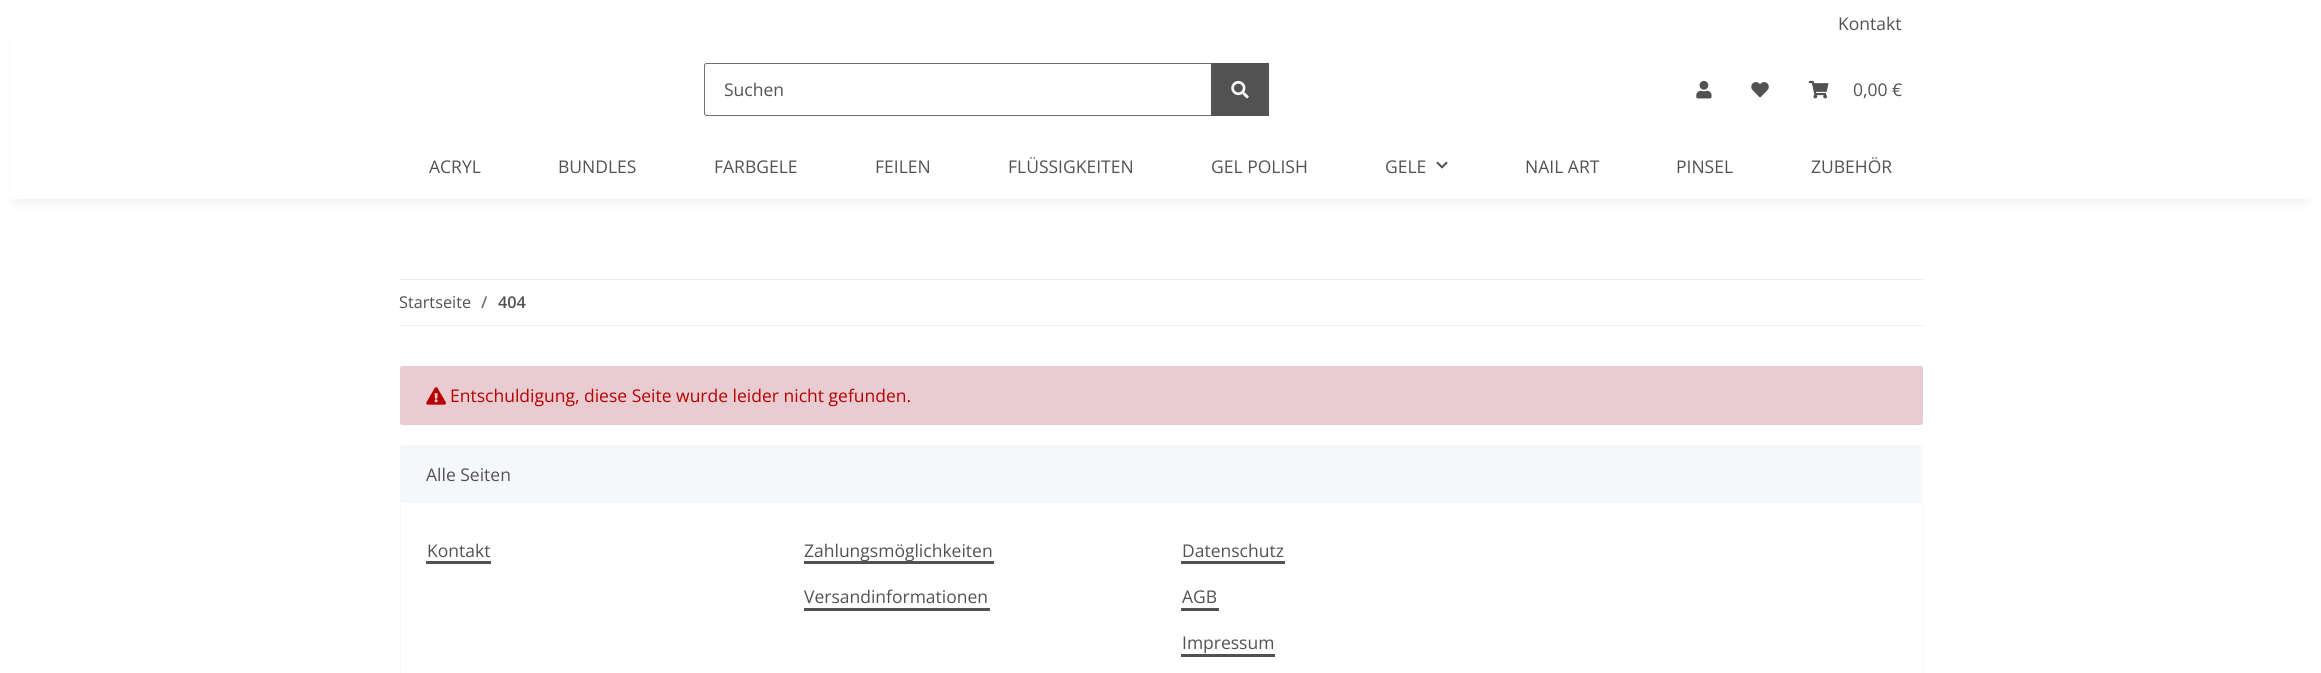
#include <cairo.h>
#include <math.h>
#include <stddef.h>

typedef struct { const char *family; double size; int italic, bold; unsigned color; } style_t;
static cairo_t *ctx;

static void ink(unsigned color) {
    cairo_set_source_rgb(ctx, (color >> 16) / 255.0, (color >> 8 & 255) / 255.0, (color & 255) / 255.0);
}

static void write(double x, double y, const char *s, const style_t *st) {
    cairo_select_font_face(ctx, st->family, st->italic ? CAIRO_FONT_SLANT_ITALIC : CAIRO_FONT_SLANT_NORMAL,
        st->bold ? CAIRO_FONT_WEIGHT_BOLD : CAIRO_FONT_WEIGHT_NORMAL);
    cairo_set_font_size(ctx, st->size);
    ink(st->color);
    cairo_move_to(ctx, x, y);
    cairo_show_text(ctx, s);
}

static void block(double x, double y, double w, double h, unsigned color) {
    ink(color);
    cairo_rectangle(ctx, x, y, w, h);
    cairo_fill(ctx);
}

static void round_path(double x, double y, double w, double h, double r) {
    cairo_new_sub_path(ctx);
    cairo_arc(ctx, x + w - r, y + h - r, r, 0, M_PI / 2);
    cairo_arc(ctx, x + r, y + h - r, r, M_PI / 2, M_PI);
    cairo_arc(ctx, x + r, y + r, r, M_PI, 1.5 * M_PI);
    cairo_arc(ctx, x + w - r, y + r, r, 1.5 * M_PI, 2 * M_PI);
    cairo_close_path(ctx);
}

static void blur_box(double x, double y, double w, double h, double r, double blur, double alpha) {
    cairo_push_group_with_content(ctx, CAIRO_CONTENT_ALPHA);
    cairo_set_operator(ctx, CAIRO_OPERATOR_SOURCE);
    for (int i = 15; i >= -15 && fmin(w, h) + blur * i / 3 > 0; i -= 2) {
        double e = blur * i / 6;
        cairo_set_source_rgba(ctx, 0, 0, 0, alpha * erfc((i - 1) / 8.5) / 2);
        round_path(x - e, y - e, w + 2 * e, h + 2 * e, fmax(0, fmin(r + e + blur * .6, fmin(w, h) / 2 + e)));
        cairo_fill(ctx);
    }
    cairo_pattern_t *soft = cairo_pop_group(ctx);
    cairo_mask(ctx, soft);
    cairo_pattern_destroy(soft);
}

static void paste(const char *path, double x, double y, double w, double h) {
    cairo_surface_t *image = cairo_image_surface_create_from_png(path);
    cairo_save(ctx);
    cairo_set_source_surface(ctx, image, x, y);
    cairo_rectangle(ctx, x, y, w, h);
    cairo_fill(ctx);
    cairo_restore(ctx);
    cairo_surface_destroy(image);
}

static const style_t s1 = {"Open Sans", 17.5, 0, 0, 0x525252};
static const style_t s2 = {"Open Sans", 16.25, 0, 0, 0x525252};
static const style_t s3 = {"Open Sans SemiBold", 16.25, 0, 0, 0x707070};
static const style_t s4 = {"Open Sans SemiBold", 16.25, 0, 0, 0x525252};
static const style_t s5 = {"Open Sans", 17.5, 0, 0, 0xb90000};

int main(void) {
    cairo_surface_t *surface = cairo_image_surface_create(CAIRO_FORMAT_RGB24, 2321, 673);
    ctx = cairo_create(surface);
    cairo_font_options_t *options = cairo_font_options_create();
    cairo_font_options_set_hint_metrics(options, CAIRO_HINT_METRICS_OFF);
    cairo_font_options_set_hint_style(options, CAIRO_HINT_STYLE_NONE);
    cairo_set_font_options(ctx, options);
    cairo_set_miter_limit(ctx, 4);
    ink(0xffffff);
    cairo_paint(ctx);
    ink(0x000000);
    blur_box(15, 35, 2291, 169, 0, 5.5, 0.06);
    block(10, 30, 2301, 169, 0xffffff);
    write(1838, 30, "Kontakt", &s1);
    cairo_new_path(ctx);
    cairo_move_to(ctx, 706.5, 63.5);
    cairo_line_to(ctx, 1212.5, 63.5);
    cairo_line_to(ctx, 1212.5, 115.5);
    cairo_line_to(ctx, 706.5, 115.5);
    cairo_curve_to(ctx, 705.5, 115.5, 704.5, 114.5, 704.5, 113.5);
    cairo_line_to(ctx, 704.5, 65.5);
    cairo_curve_to(ctx, 704.5, 64.5, 705.5, 63.5, 706.5, 63.5);
    cairo_close_path(ctx);
    ink(0x707070);
    cairo_set_line_width(ctx, 1);
    cairo_stroke(ctx);
    write(724, 96, "Suchen", &s1);
    block(1211, 63, 58, 53, 0x525252);
    paste("pic1.png", 1231, 80, 18, 19);
    paste("pic2.png", 1696, 80, 16, 19);
    paste("pic3.png", 1751, 82, 18, 16);
    paste("pic4.png", 1808, 80, 21, 19);
    write(1853, 96, "0,00 €", &s1);
    write(429, 173, "ACRYL", &s1);
    write(558, 173, "BUNDLES", &s1);
    write(714, 173, "FARBGELE", &s1);
    write(875, 173, "FEILEN", &s1);
    write(1008, 173, "FLÜSSIGKEITEN", &s1);
    write(1211, 173, "GEL POLISH", &s1);
    write(1385, 173, "GELE", &s1);
    paste("pic5.png", 1436, 161, 12, 8);
    write(1525, 173, "NAIL ART", &s1);
    write(1676, 173, "PINSEL", &s1);
    write(1811, 173, "ZUBEHÖR", &s1);
    block(400, 279, 1523, 1, 0xebebeb);
    block(400, 325, 1523, 1, 0xebebeb);
    write(399, 308, "Startseite", &s2);
    write(481, 308, "/", &s3);
    write(498, 308, "404", &s4);
    ink(0xe8ccd2);
    round_path(400.5, 366.5, 1522, 58, 2);
    cairo_fill_preserve(ctx);
    cairo_stroke(ctx);
    paste("pic6.png", 426, 387, 20, 18);
    write(450, 402, "Entschuldigung, diese Seite wurde leider nicht gefunden.", &s5);
    round_path(400.5, 445.5, 1522, 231, 2);
    ink(0xf5f7fa);
    cairo_stroke(ctx);
    cairo_new_path(ctx);
    cairo_move_to(ctx, 402, 446);
    cairo_line_to(ctx, 1920, 446);
    cairo_curve_to(ctx, 1920.5, 446, 1921, 446.5, 1921, 447);
    cairo_line_to(ctx, 1921, 503);
    cairo_line_to(ctx, 401, 503);
    cairo_line_to(ctx, 401, 447);
    cairo_curve_to(ctx, 401, 446.5, 401.5, 446, 402, 446);
    cairo_close_path(ctx);
    cairo_fill(ctx);
    write(426, 481, "Alle Seiten", &s1);
    write(427, 557, "Kontakt", &s1);
    block(426, 561, 65, 3, 0x525252);
    write(804, 557, "Zahlungsmöglichkeiten", &s1);
    block(804, 561, 190, 3, 0x525252);
    write(804, 603, "Versandinformationen", &s1);
    block(804, 608, 186, 3, 0x525252);
    write(1182, 557, "Datenschutz", &s1);
    block(1181, 561, 104, 3, 0x525252);
    write(1182, 603, "AGB", &s1);
    block(1181, 608, 38, 3, 0x525252);
    write(1182, 649, "Impressum", &s1);
    block(1181, 654, 94, 3, 0x525252);
    cairo_surface_write_to_png(surface, "screenshot.png");
    cairo_font_options_destroy(options);
    cairo_destroy(ctx);
    cairo_surface_destroy(surface);
    return 0;
}
